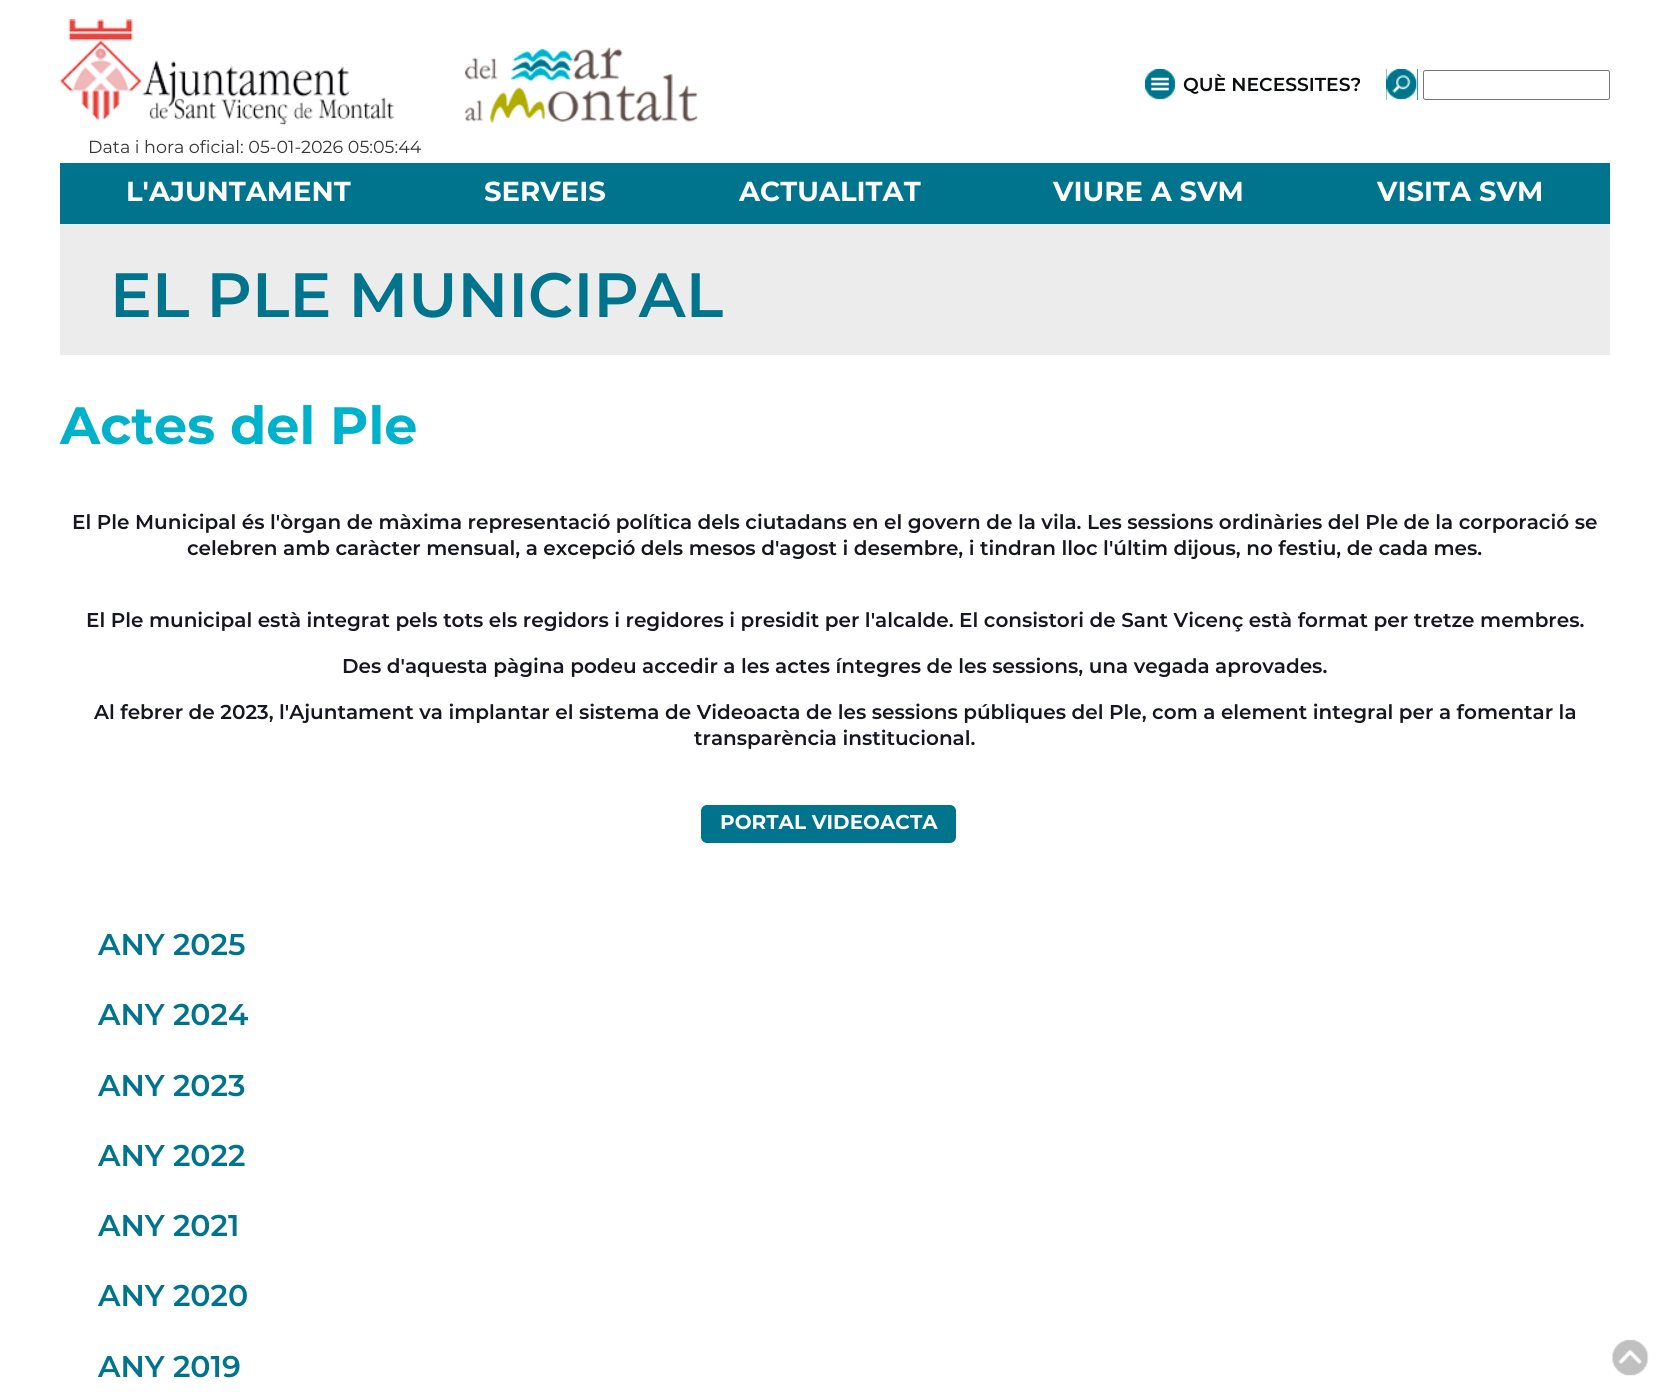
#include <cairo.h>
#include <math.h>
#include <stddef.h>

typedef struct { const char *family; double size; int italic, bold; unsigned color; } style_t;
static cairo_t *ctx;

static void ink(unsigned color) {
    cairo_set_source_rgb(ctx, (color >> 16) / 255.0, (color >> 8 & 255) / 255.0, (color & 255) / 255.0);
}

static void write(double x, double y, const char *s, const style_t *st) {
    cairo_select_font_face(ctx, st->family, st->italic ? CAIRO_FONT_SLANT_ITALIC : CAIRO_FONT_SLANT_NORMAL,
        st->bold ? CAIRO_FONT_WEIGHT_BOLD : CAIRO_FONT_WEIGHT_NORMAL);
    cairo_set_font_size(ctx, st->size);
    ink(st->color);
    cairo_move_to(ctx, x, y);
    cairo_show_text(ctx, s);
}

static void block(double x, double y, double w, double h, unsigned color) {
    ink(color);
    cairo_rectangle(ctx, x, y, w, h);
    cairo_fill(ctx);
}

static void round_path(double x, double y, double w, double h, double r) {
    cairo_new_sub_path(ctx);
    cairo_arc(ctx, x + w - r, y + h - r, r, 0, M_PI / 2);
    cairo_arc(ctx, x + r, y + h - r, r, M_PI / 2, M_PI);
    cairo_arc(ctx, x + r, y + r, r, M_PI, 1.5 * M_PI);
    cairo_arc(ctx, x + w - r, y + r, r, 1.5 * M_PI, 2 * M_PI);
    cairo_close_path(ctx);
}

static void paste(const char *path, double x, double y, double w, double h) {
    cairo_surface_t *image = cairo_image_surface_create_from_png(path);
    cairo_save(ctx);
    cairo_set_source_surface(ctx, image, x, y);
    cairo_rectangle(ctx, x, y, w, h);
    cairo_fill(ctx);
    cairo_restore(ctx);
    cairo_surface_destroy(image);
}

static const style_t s1 = {"Montserrat SemiBold", 18.75, 0, 0, 0x0a0c0d};
static const style_t s2 = {"Montserrat", 17.5, 0, 0, 0x333333};
static const style_t s3 = {"Montserrat", 27.5, 0, 1, 0xffffff};
static const style_t s4 = {"Montserrat SemiBold", 62.5, 0, 0, 0x00738d};
static const style_t s5 = {"Montserrat", 52.5, 0, 1, 0x00b1cc};
static const style_t s6 = {"Montserrat SemiBold", 20, 0, 0, 0x15161e};
static const style_t s7 = {"Montserrat", 20, 0, 1, 0xffffff};
static const style_t s8 = {"Montserrat SemiBold", 30, 0, 0, 0x00738d};

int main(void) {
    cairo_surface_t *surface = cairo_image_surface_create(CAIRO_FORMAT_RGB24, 1670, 1397);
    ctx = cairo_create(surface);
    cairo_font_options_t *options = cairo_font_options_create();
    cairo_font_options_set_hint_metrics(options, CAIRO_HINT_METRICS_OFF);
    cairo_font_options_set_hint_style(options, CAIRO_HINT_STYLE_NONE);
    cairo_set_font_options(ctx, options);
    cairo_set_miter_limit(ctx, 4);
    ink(0xffffff);
    cairo_paint(ctx);
    paste("pic1.png", 60, 19, 638, 106);
    block(1145, 69, 31, 31, 0x00738d);
    paste("pic2.png", 1145, 69, 31, 31);
    write(1183, 91, "QUÈ NECESSITES?", &s1);
    block(1386, 69, 32, 31, 0x00738d);
    paste("pic3.png", 1386, 69, 32, 31);
    round_path(1423.5, 70.5, 186, 29, 2);
    ink(0x767676);
    cairo_set_line_width(ctx, 1);
    cairo_stroke(ctx);
    write(88, 153, "Data i hora oficial: 05-01-2026 05:05:44", &s2);
    block(60, 163, 1550, 61, 0x00738d);
    write(126, 201, "L'AJUNTAMENT", &s3);
    write(484, 201, "SERVEIS", &s3);
    write(739, 201, "ACTUALITAT", &s3);
    write(1053, 201, "VIURE A SVM", &s3);
    write(1377, 201, "VISITA SVM", &s3);
    block(60, 224, 1550, 131, 0xececec);
    write(110, 317, "EL PLE MUNICIPAL", &s4);
    write(60, 444, "Actes del Ple", &s5);
    write(72, 529, "El Ple Municipal és l'òrgan de màxima representació política dels ciutadans en el govern de la vila. Les sessions ordinàries del Ple de la corporació se", &s6);
    write(187, 555, "celebren amb caràcter mensual, a excepció dels mesos d'agost i desembre, i tindran lloc l'últim dijous, no festiu, de cada mes.", &s6);
    write(86, 627, "El Ple municipal està integrat pels tots els regidors i regidores i presidit per l'alcalde. El consistori de Sant Vicenç està format per tretze membres.", &s6);
    write(342, 673, "Des d'aquesta pàgina podeu accedir a les actes íntegres de les sessions, una vegada aprovades.", &s6);
    write(94, 719, "Al febrer de 2023, l'Ajuntament va implantar el sistema de Videoacta de les sessions públiques del Ple, com a element integral per a fomentar la", &s6);
    write(694, 745, "transparència institucional.", &s6);
    ink(0x00738d);
    round_path(701, 805, 255, 38, 6);
    cairo_fill(ctx);
    write(720, 829, "PORTAL VIDEOACTA", &s7);
    write(98, 955, "ANY 2025", &s8);
    write(98, 1025, "ANY 2024", &s8);
    write(98, 1096, "ANY 2023", &s8);
    write(98, 1166, "ANY 2022", &s8);
    write(98, 1236, "ANY 2021", &s8);
    write(98, 1306, "ANY 2020", &s8);
    write(98, 1377, "ANY 2019", &s8);
    paste("pic4.png", 1612, 1339, 37, 37);
    cairo_surface_write_to_png(surface, "screenshot.png");
    cairo_font_options_destroy(options);
    cairo_destroy(ctx);
    cairo_surface_destroy(surface);
    return 0;
}
